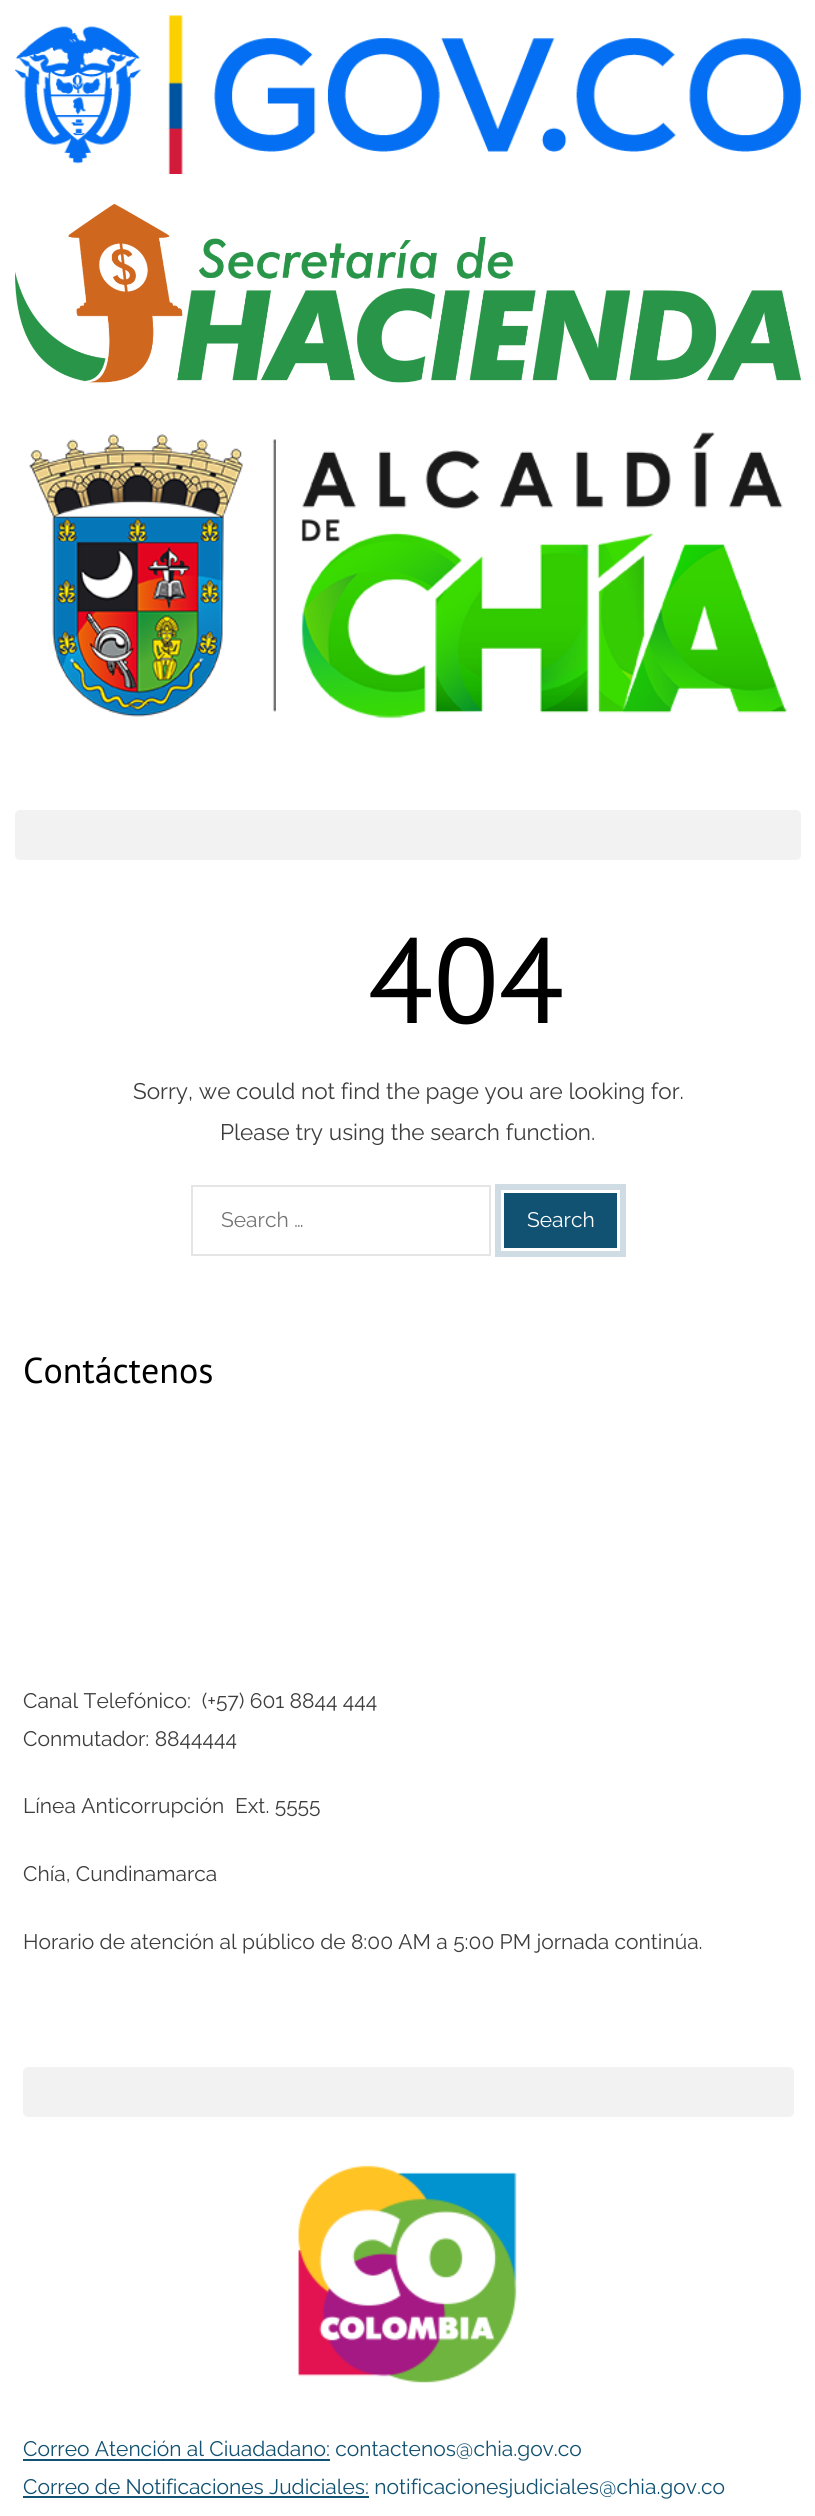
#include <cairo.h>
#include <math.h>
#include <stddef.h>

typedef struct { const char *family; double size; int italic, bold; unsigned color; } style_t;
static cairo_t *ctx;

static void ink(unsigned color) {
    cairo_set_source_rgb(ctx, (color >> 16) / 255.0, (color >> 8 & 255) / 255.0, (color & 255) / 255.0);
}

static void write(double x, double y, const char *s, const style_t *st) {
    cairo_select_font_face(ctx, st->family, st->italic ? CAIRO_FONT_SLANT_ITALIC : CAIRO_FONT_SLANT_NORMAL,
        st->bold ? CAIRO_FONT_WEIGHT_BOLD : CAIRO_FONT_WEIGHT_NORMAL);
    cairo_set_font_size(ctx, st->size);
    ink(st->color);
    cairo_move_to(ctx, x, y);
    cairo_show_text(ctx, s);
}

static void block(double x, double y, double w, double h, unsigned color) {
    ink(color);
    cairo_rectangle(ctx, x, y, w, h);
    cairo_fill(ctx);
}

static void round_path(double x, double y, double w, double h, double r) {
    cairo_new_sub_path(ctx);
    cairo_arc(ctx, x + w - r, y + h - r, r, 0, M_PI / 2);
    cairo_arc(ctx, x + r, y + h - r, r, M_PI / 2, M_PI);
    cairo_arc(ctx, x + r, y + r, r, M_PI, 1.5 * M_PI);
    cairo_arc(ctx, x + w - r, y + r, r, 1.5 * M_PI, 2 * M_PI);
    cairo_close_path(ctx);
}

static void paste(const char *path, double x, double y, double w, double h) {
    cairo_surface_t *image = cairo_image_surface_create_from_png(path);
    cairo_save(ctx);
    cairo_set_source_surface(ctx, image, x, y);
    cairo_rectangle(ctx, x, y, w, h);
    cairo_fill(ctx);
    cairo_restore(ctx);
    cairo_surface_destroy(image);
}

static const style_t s1 = {"PT Sans", 120, 0, 0, 0x000000};
static const style_t s2 = {"Raleway", 22.5, 0, 0, 0x3d3d3d};
static const style_t s3 = {"Raleway", 21, 0, 0, 0x757575};
static const style_t s4 = {"Raleway", 21, 0, 0, 0xffffff};
static const style_t s5 = {"PT Sans", 36, 0, 0, 0x000000};
static const style_t s6 = {"Raleway", 21, 0, 0, 0x3d3d3d};
static const style_t s7 = {"Raleway", 21, 0, 0, 0x115172};

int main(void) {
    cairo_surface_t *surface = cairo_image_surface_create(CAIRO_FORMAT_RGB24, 815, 2516);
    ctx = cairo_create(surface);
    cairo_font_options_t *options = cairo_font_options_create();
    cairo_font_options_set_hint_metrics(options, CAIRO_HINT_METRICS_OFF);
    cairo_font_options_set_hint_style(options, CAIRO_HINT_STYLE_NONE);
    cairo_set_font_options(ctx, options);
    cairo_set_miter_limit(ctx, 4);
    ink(0xffffff);
    cairo_paint(ctx);
    paste("pic1.png", 15, 15, 786, 159);
    paste("pic2.png", 15, 204, 786, 179);
    paste("pic3.png", 29, 432, 758, 287);
    ink(0xf2f2f2);
    round_path(15, 810, 786, 50, 5);
    cairo_fill(ctx);
    write(368, 1023, "404", &s1);
    write(133, 1099, "Sorry, we could not find the page you are looking for.", &s2);
    write(220, 1140, "Please try using the search function.", &s2);
    cairo_rectangle(ctx, 192, 1186, 298, 69);
    ink(0xe5e5e5);
    cairo_stroke(ctx);
    write(221, 1227, "Search …", &s3);
    cairo_rectangle(ctx, 498, 1187, 125, 67);
    ink(0xcfdce3);
    cairo_set_line_width(ctx, 6);
    cairo_stroke(ctx);
    block(504, 1193, 113, 55, 0x115172);
    write(527, 1227, "Search", &s4);
    write(23, 1383, "Contáctenos", &s5);
    write(23, 1708, "Canal Telefónico:  (+57) 601 8844 444", &s6);
    write(23, 1746, "Conmutador: 8844444", &s6);
    write(23, 1813, "Línea Anticorrupción  Ext. 5555", &s6);
    write(23, 1881, "Chía, Cundinamarca", &s6);
    write(23, 1949, "Horario de atención al público de 8:00 AM a 5:00 PM jornada continúa.", &s6);
    ink(0xf2f2f2);
    round_path(23, 2067, 771, 50, 5);
    cairo_fill(ctx);
    paste("pic4.png", 298, 2165, 219, 218);
    block(23, 2459, 307, 2, 0x115172);
    write(23, 2456, "Correo Atención al Ciuadadano: contactenos@chia.gov.co", &s7);
    block(23, 2496, 346, 2, 0x115172);
    write(23, 2494, "Correo de Notificaciones Judiciales: notificacionesjudiciales@chia.gov.co", &s7);
    cairo_surface_write_to_png(surface, "screenshot.png");
    cairo_font_options_destroy(options);
    cairo_destroy(ctx);
    cairo_surface_destroy(surface);
    return 0;
}
